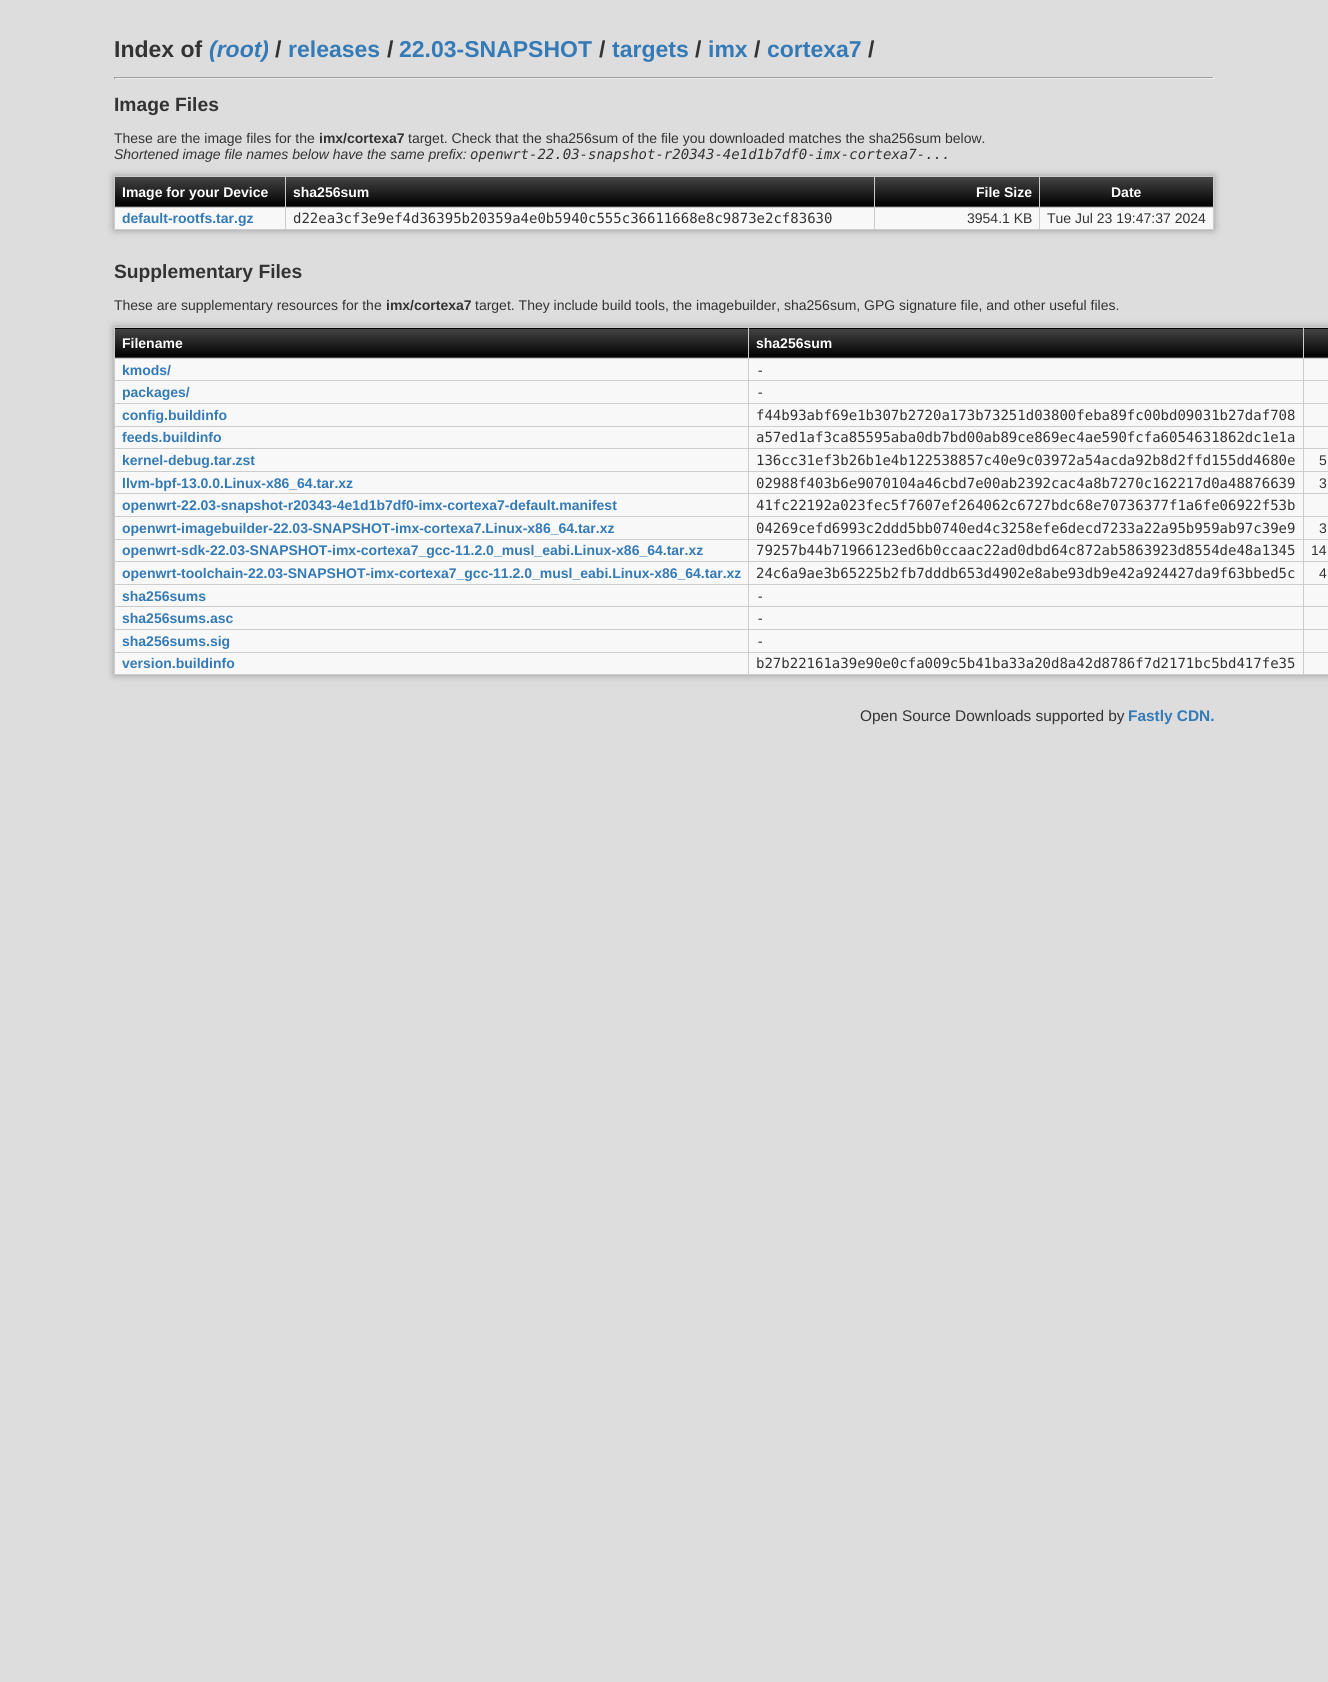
#include <cairo.h>
#include <math.h>
#include <stddef.h>

typedef struct { const char *family; double size; int italic, bold; unsigned color; } style_t;
static cairo_t *ctx;

static void ink(unsigned color) {
    cairo_set_source_rgb(ctx, (color >> 16) / 255.0, (color >> 8 & 255) / 255.0, (color & 255) / 255.0);
}

static void write(double x, double y, const char *s, const style_t *st) {
    cairo_select_font_face(ctx, st->family, st->italic ? CAIRO_FONT_SLANT_ITALIC : CAIRO_FONT_SLANT_NORMAL,
        st->bold ? CAIRO_FONT_WEIGHT_BOLD : CAIRO_FONT_WEIGHT_NORMAL);
    cairo_set_font_size(ctx, st->size);
    ink(st->color);
    cairo_move_to(ctx, x, y);
    cairo_show_text(ctx, s);
}

static void block(double x, double y, double w, double h, unsigned color) {
    ink(color);
    cairo_rectangle(ctx, x, y, w, h);
    cairo_fill(ctx);
}

static void round_path(double x, double y, double w, double h, double r) {
    cairo_new_sub_path(ctx);
    cairo_arc(ctx, x + w - r, y + h - r, r, 0, M_PI / 2);
    cairo_arc(ctx, x + r, y + h - r, r, M_PI / 2, M_PI);
    cairo_arc(ctx, x + r, y + r, r, M_PI, 1.5 * M_PI);
    cairo_arc(ctx, x + w - r, y + r, r, 1.5 * M_PI, 2 * M_PI);
    cairo_close_path(ctx);
}

static void blur_box(double x, double y, double w, double h, double r, double blur, double alpha) {
    cairo_push_group_with_content(ctx, CAIRO_CONTENT_ALPHA);
    cairo_set_operator(ctx, CAIRO_OPERATOR_SOURCE);
    for (int i = 15; i >= -15 && fmin(w, h) + blur * i / 3 > 0; i -= 2) {
        double e = blur * i / 6;
        cairo_set_source_rgba(ctx, 0, 0, 0, alpha * erfc((i - 1) / 8.5) / 2);
        round_path(x - e, y - e, w + 2 * e, h + 2 * e, fmax(0, fmin(r + e + blur * .6, fmin(w, h) / 2 + e)));
        cairo_fill(ctx);
    }
    cairo_pattern_t *soft = cairo_pop_group(ctx);
    cairo_mask(ctx, soft);
    cairo_pattern_destroy(soft);
}

static const style_t s1 = {"Liberation Sans", 23, 0, 1, 0x333333};
static const style_t s2 = {"Liberation Sans", 23, 1, 1, 0x337ab7};
static const style_t s3 = {"Liberation Sans", 23, 0, 1, 0x337ab7};
static const style_t s4 = {"Liberation Sans", 19.25, 0, 1, 0x333333};
static const style_t s5 = {"Liberation Sans", 14, 0, 0, 0x333333};
static const style_t s6 = {"Liberation Sans", 14, 0, 1, 0x333333};
static const style_t s7 = {"Liberation Sans", 14, 1, 0, 0x333333};
static const style_t s8 = {"DejaVu Sans Mono", 14, 1, 0, 0x333333};
static const style_t s9 = {"Liberation Sans", 14, 0, 1, 0xffffff};
static const style_t s10 = {"Liberation Sans", 14, 0, 1, 0x337ab7};
static const style_t s11 = {"DejaVu Sans Mono", 14, 0, 0, 0x333333};
static const style_t s12 = {"Liberation Sans", 15.4, 0, 0, 0x333333};
static const style_t s13 = {"Liberation Sans", 15.4, 0, 1, 0x337ab7};

int main(void) {
    cairo_surface_t *surface = cairo_image_surface_create(CAIRO_FORMAT_RGB24, 1328, 1682);
    ctx = cairo_create(surface);
    cairo_font_options_t *options = cairo_font_options_create();
    cairo_font_options_set_hint_metrics(options, CAIRO_HINT_METRICS_OFF);
    cairo_font_options_set_hint_style(options, CAIRO_HINT_STYLE_NONE);
    cairo_set_font_options(ctx, options);
    cairo_set_miter_limit(ctx, 4);
    cairo_pattern_t *gradient;
    ink(0xdddddd);
    cairo_paint(ctx);
    write(114, 57, "Index of", &s1);
    write(209, 57, "(root)", &s2);
    write(275, 57, "/", &s1);
    write(288, 57, "releases", &s3);
    write(387, 57, "/", &s1);
    write(399, 57, "22.03-SNAPSHOT", &s3);
    write(599, 57, "/", &s1);
    write(612, 57, "targets", &s3);
    write(695, 57, "/", &s1);
    write(708, 57, "imx", &s3);
    write(754, 57, "/", &s1);
    write(767, 57, "cortexa7", &s3);
    write(868, 57, "/", &s1);
    block(114, 77, 1100, 1, 0x9f9f9f);
    block(1213, 77, 1, 2, 0xeeeeee);
    block(114, 78, 1100, 1, 0xeeeeee);
    block(114, 77, 1, 2, 0x9f9f9f);
    write(114, 111, "Image Files", &s4);
    write(114, 143, "These are the image files for the", &s5);
    write(319, 143, "imx/cortexa7", &s6);
    write(408, 143, "target. Check that the sha256sum of the file you downloaded matches the sha256sum below.", &s5);
    write(114, 159, "Shortened image file names below have the same prefix:", &s7);
    write(470, 159, "openwrt-22.03-snapshot-r20343-4e1d1b7df0-imx-cortexa7-...", &s8);
    ink(0x999999);
    blur_box(114, 176, 1100, 54, 0, 4, 1);
    gradient = cairo_pattern_create_linear(201, 177, 201, 206);
    cairo_pattern_add_color_stop_rgba(gradient, 0, 0.267, 0.267, 0.267, 1);
    cairo_pattern_add_color_stop_rgba(gradient, 1, 0, 0, 0, 1);
    cairo_set_source(ctx, gradient);
    cairo_pattern_destroy(gradient);
    cairo_rectangle(ctx, 115, 177, 170, 29);
    cairo_fill(ctx);
    gradient = cairo_pattern_create_linear(201, 206, 201, 235);
    cairo_pattern_add_color_stop_rgba(gradient, 0, 0.267, 0.267, 0.267, 1);
    cairo_pattern_add_color_stop_rgba(gradient, 1, 0, 0, 0, 1);
    cairo_set_source(ctx, gradient);
    cairo_pattern_destroy(gradient);
    cairo_rectangle(ctx, 115, 206, 171, 1);
    cairo_fill(ctx);
    block(1039, 176, 175, 1, 0xcccccc);
    gradient = cairo_pattern_create_linear(958, 206, 958, 235);
    cairo_pattern_add_color_stop_rgba(gradient, 0, 0.267, 0.267, 0.267, 1);
    cairo_pattern_add_color_stop_rgba(gradient, 1, 0, 0, 0, 1);
    cairo_set_source(ctx, gradient);
    cairo_pattern_destroy(gradient);
    cairo_rectangle(ctx, 875, 206, 165, 1);
    cairo_fill(ctx);
    block(1039, 207, 175, 1, 0xcccccc);
    block(115, 208, 1098, 21, 0xf8f8f8);
    block(1213, 207, 1, 23, 0xcccccc);
    block(1039, 229, 175, 1, 0xcccccc);
    block(1039, 207, 1, 23, 0xcccccc);
    block(874, 207, 166, 1, 0xcccccc);
    block(1039, 176, 1, 32, 0xcccccc);
    block(874, 176, 166, 1, 0xcccccc);
    gradient = cairo_pattern_create_linear(581, 206, 581, 235);
    cairo_pattern_add_color_stop_rgba(gradient, 0, 0.267, 0.267, 0.267, 1);
    cairo_pattern_add_color_stop_rgba(gradient, 1, 0, 0, 0, 1);
    cairo_set_source(ctx, gradient);
    cairo_pattern_destroy(gradient);
    cairo_rectangle(ctx, 286, 206, 589, 1);
    cairo_fill(ctx);
    block(874, 229, 166, 1, 0xcccccc);
    block(874, 207, 1, 23, 0xcccccc);
    block(285, 207, 590, 1, 0xcccccc);
    block(874, 176, 1, 32, 0xcccccc);
    block(285, 176, 590, 1, 0xcccccc);
    block(285, 229, 590, 1, 0xcccccc);
    block(285, 207, 1, 23, 0xcccccc);
    block(114, 207, 172, 1, 0xcccccc);
    block(285, 176, 1, 32, 0xcccccc);
    block(114, 176, 172, 1, 0xcccccc);
    block(114, 229, 172, 1, 0xcccccc);
    block(114, 207, 1, 23, 0xcccccc);
    block(114, 176, 1, 32, 0xcccccc);
    write(122, 197, "Image for your Device", &s9);
    gradient = cairo_pattern_create_linear(581, 177, 581, 206);
    cairo_pattern_add_color_stop_rgba(gradient, 0, 0.267, 0.267, 0.267, 1);
    cairo_pattern_add_color_stop_rgba(gradient, 1, 0, 0, 0, 1);
    cairo_set_source(ctx, gradient);
    cairo_pattern_destroy(gradient);
    cairo_rectangle(ctx, 286, 177, 588, 29);
    cairo_fill(ctx);
    write(293, 197, "sha256sum", &s9);
    gradient = cairo_pattern_create_linear(958, 177, 958, 206);
    cairo_pattern_add_color_stop_rgba(gradient, 0, 0.267, 0.267, 0.267, 1);
    cairo_pattern_add_color_stop_rgba(gradient, 1, 0, 0, 0, 1);
    cairo_set_source(ctx, gradient);
    cairo_pattern_destroy(gradient);
    cairo_rectangle(ctx, 875, 177, 164, 29);
    cairo_fill(ctx);
    write(976, 197, "File Size", &s9);
    gradient = cairo_pattern_create_linear(1127, 177, 1127, 206);
    cairo_pattern_add_color_stop_rgba(gradient, 0, 0.267, 0.267, 0.267, 1);
    cairo_pattern_add_color_stop_rgba(gradient, 1, 0, 0, 0, 1);
    cairo_set_source(ctx, gradient);
    cairo_pattern_destroy(gradient);
    cairo_rectangle(ctx, 1040, 177, 173, 29);
    cairo_fill(ctx);
    gradient = cairo_pattern_create_linear(1127, 206, 1127, 235);
    cairo_pattern_add_color_stop_rgba(gradient, 0, 0.267, 0.267, 0.267, 1);
    cairo_pattern_add_color_stop_rgba(gradient, 1, 0, 0, 0, 1);
    cairo_set_source(ctx, gradient);
    cairo_pattern_destroy(gradient);
    cairo_rectangle(ctx, 1040, 206, 174, 1);
    cairo_fill(ctx);
    block(1213, 176, 1, 32, 0xcccccc);
    write(1111, 197, "Date", &s9);
    write(122, 223, "default-rootfs.tar.gz", &s10);
    write(293, 223, "d22ea3cf3e9ef4d36395b20359a4e0b5940c555c36611668e8c9873e2cf83630", &s11);
    write(967, 223, "3954.1 KB", &s5);
    write(1047, 223, "Tue Jul 23 19:47:37 2024", &s5);
    write(114, 278, "Supplementary Files", &s4);
    write(114, 310, "These are supplementary resources for the", &s5);
    write(386, 310, "imx/cortexa7", &s6);
    write(475, 310, "target. They include build tools, the imagebuilder, sha256sum, GPG signature file, and other useful files.", &s5);
    ink(0x999999);
    blur_box(114, 327, 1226, 348, 0, 4, 1);
    gradient = cairo_pattern_create_linear(432, 301, 432, 329);
    cairo_pattern_add_color_stop_rgba(gradient, 0, 0.267, 0.267, 0.267, 1);
    cairo_pattern_add_color_stop_rgba(gradient, 1, 0, 0, 0, 1);
    cairo_set_source(ctx, gradient);
    cairo_pattern_destroy(gradient);
    cairo_rectangle(ctx, 115, 328, 634, 1);
    cairo_fill(ctx);
    gradient = cairo_pattern_create_linear(432, 329, 432, 357);
    cairo_pattern_add_color_stop_rgba(gradient, 0, 0.267, 0.267, 0.267, 1);
    cairo_pattern_add_color_stop_rgba(gradient, 1, 0, 0, 0, 1);
    cairo_set_source(ctx, gradient);
    cairo_pattern_destroy(gradient);
    cairo_rectangle(ctx, 115, 329, 633, 28);
    cairo_fill(ctx);
    gradient = cairo_pattern_create_linear(432, 357, 432, 385);
    cairo_pattern_add_color_stop_rgba(gradient, 0, 0.267, 0.267, 0.267, 1);
    cairo_pattern_add_color_stop_rgba(gradient, 1, 0, 0, 0, 1);
    cairo_set_source(ctx, gradient);
    cairo_pattern_destroy(gradient);
    cairo_rectangle(ctx, 115, 357, 634, 1);
    cairo_fill(ctx);
    block(1303, 327, 25, 1, 0xcccccc);
    gradient = cairo_pattern_create_linear(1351, 301, 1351, 329);
    cairo_pattern_add_color_stop_rgba(gradient, 0, 0.267, 0.267, 0.267, 1);
    cairo_pattern_add_color_stop_rgba(gradient, 1, 0, 0, 0, 1);
    cairo_set_source(ctx, gradient);
    cairo_pattern_destroy(gradient);
    cairo_rectangle(ctx, 1303, 328, 25, 1);
    cairo_fill(ctx);
    gradient = cairo_pattern_create_linear(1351, 357, 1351, 385);
    cairo_pattern_add_color_stop_rgba(gradient, 0, 0.267, 0.267, 0.267, 1);
    cairo_pattern_add_color_stop_rgba(gradient, 1, 0, 0, 0, 1);
    cairo_set_source(ctx, gradient);
    cairo_pattern_destroy(gradient);
    cairo_rectangle(ctx, 1303, 357, 25, 1);
    cairo_fill(ctx);
    block(1303, 358, 25, 1, 0xcccccc);
    block(115, 359, 1213, 21, 0xf8f8f8);
    block(1303, 380, 25, 1, 0xcccccc);
    block(115, 381, 1213, 22, 0xf8f8f8);
    block(1303, 403, 25, 1, 0xcccccc);
    block(115, 404, 1213, 22, 0xf8f8f8);
    block(1303, 426, 25, 1, 0xcccccc);
    block(115, 427, 1213, 21, 0xf8f8f8);
    block(1303, 448, 25, 1, 0xcccccc);
    block(115, 449, 1213, 22, 0xf8f8f8);
    block(1303, 471, 25, 1, 0xcccccc);
    block(115, 472, 1213, 21, 0xf8f8f8);
    block(1303, 493, 25, 1, 0xcccccc);
    block(115, 494, 1213, 22, 0xf8f8f8);
    block(1303, 516, 25, 1, 0xcccccc);
    block(115, 517, 1213, 22, 0xf8f8f8);
    block(1303, 539, 25, 1, 0xcccccc);
    block(115, 540, 1213, 21, 0xf8f8f8);
    block(1303, 561, 25, 1, 0xcccccc);
    block(115, 562, 1213, 22, 0xf8f8f8);
    block(1303, 584, 25, 1, 0xcccccc);
    block(115, 585, 1213, 21, 0xf8f8f8);
    block(1303, 606, 25, 1, 0xcccccc);
    block(115, 607, 1213, 22, 0xf8f8f8);
    block(1303, 629, 25, 1, 0xcccccc);
    block(115, 630, 1213, 22, 0xf8f8f8);
    block(1303, 652, 25, 1, 0xcccccc);
    block(115, 653, 1213, 21, 0xf8f8f8);
    block(1303, 674, 25, 1, 0xcccccc);
    block(1303, 652, 1, 23, 0xcccccc);
    block(748, 652, 556, 1, 0xcccccc);
    block(1303, 629, 1, 24, 0xcccccc);
    block(748, 629, 556, 1, 0xcccccc);
    block(1303, 606, 1, 24, 0xcccccc);
    block(748, 606, 556, 1, 0xcccccc);
    block(1303, 584, 1, 23, 0xcccccc);
    block(748, 584, 556, 1, 0xcccccc);
    block(1303, 561, 1, 24, 0xcccccc);
    block(748, 561, 556, 1, 0xcccccc);
    block(1303, 539, 1, 23, 0xcccccc);
    block(748, 539, 556, 1, 0xcccccc);
    block(1303, 516, 1, 24, 0xcccccc);
    block(748, 516, 556, 1, 0xcccccc);
    block(1303, 493, 1, 24, 0xcccccc);
    block(748, 493, 556, 1, 0xcccccc);
    block(1303, 471, 1, 23, 0xcccccc);
    block(748, 471, 556, 1, 0xcccccc);
    block(1303, 448, 1, 24, 0xcccccc);
    block(748, 448, 556, 1, 0xcccccc);
    block(1303, 426, 1, 23, 0xcccccc);
    block(748, 426, 556, 1, 0xcccccc);
    block(1303, 403, 1, 24, 0xcccccc);
    block(748, 403, 556, 1, 0xcccccc);
    block(1303, 380, 1, 24, 0xcccccc);
    block(748, 380, 556, 1, 0xcccccc);
    block(1303, 358, 1, 23, 0xcccccc);
    block(748, 358, 556, 1, 0xcccccc);
    block(1303, 327, 1, 32, 0xcccccc);
    block(748, 327, 556, 1, 0xcccccc);
    block(748, 674, 556, 1, 0xcccccc);
    block(748, 652, 1, 23, 0xcccccc);
    block(114, 652, 635, 1, 0xcccccc);
    block(748, 629, 1, 24, 0xcccccc);
    block(114, 629, 635, 1, 0xcccccc);
    block(748, 606, 1, 24, 0xcccccc);
    block(114, 606, 635, 1, 0xcccccc);
    block(748, 584, 1, 23, 0xcccccc);
    block(114, 584, 635, 1, 0xcccccc);
    block(748, 561, 1, 24, 0xcccccc);
    block(114, 561, 635, 1, 0xcccccc);
    block(748, 539, 1, 23, 0xcccccc);
    block(114, 539, 635, 1, 0xcccccc);
    block(748, 516, 1, 24, 0xcccccc);
    block(114, 516, 635, 1, 0xcccccc);
    block(748, 493, 1, 24, 0xcccccc);
    block(114, 493, 635, 1, 0xcccccc);
    block(748, 471, 1, 23, 0xcccccc);
    block(114, 471, 635, 1, 0xcccccc);
    block(748, 448, 1, 24, 0xcccccc);
    block(114, 448, 635, 1, 0xcccccc);
    block(748, 426, 1, 23, 0xcccccc);
    block(114, 426, 635, 1, 0xcccccc);
    block(748, 403, 1, 24, 0xcccccc);
    block(114, 403, 635, 1, 0xcccccc);
    block(748, 380, 1, 24, 0xcccccc);
    block(114, 380, 635, 1, 0xcccccc);
    block(748, 358, 1, 23, 0xcccccc);
    block(114, 358, 635, 1, 0xcccccc);
    block(748, 327, 1, 32, 0xcccccc);
    block(114, 327, 635, 1, 0xcccccc);
    block(114, 674, 635, 1, 0xcccccc);
    block(114, 652, 1, 23, 0xcccccc);
    block(114, 629, 1, 24, 0xcccccc);
    block(114, 606, 1, 24, 0xcccccc);
    block(114, 584, 1, 23, 0xcccccc);
    block(114, 561, 1, 24, 0xcccccc);
    block(114, 539, 1, 23, 0xcccccc);
    block(114, 516, 1, 24, 0xcccccc);
    block(114, 493, 1, 24, 0xcccccc);
    block(114, 471, 1, 23, 0xcccccc);
    block(114, 448, 1, 24, 0xcccccc);
    block(114, 426, 1, 23, 0xcccccc);
    block(114, 403, 1, 24, 0xcccccc);
    block(114, 380, 1, 24, 0xcccccc);
    block(114, 358, 1, 23, 0xcccccc);
    block(114, 327, 1, 32, 0xcccccc);
    write(122, 348, "Filename", &s9);
    gradient = cairo_pattern_create_linear(1026, 301, 1026, 329);
    cairo_pattern_add_color_stop_rgba(gradient, 0, 0.267, 0.267, 0.267, 1);
    cairo_pattern_add_color_stop_rgba(gradient, 1, 0, 0, 0, 1);
    cairo_set_source(ctx, gradient);
    cairo_pattern_destroy(gradient);
    cairo_rectangle(ctx, 749, 328, 554, 1);
    cairo_fill(ctx);
    gradient = cairo_pattern_create_linear(1026, 329, 1026, 357);
    cairo_pattern_add_color_stop_rgba(gradient, 0, 0.267, 0.267, 0.267, 1);
    cairo_pattern_add_color_stop_rgba(gradient, 1, 0, 0, 0, 1);
    cairo_set_source(ctx, gradient);
    cairo_pattern_destroy(gradient);
    cairo_rectangle(ctx, 749, 329, 554, 28);
    cairo_fill(ctx);
    gradient = cairo_pattern_create_linear(1026, 357, 1026, 385);
    cairo_pattern_add_color_stop_rgba(gradient, 0, 0.267, 0.267, 0.267, 1);
    cairo_pattern_add_color_stop_rgba(gradient, 1, 0, 0, 0, 1);
    cairo_set_source(ctx, gradient);
    cairo_pattern_destroy(gradient);
    cairo_rectangle(ctx, 749, 357, 554, 1);
    cairo_fill(ctx);
    write(756, 348, "sha256sum", &s9);
    gradient = cairo_pattern_create_linear(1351, 329, 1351, 357);
    cairo_pattern_add_color_stop_rgba(gradient, 0, 0.267, 0.267, 0.267, 1);
    cairo_pattern_add_color_stop_rgba(gradient, 1, 0, 0, 0, 1);
    cairo_set_source(ctx, gradient);
    cairo_pattern_destroy(gradient);
    cairo_rectangle(ctx, 1304, 329, 24, 28);
    cairo_fill(ctx);
    write(122, 375, "kmods/", &s10);
    write(756, 375, "-", &s11);
    write(122, 397, "packages/", &s10);
    write(756, 397, "-", &s11);
    write(122, 420, "config.buildinfo", &s10);
    write(756, 420, "f44b93abf69e1b307b2720a173b73251d03800feba89fc00bd09031b27daf708", &s11);
    write(122, 442, "feeds.buildinfo", &s10);
    write(756, 442, "a57ed1af3ca85595aba0db7bd00ab89ce869ec4ae590fcfa6054631862dc1e1a", &s11);
    write(122, 465, "kernel-debug.tar.zst", &s10);
    write(756, 465, "136cc31ef3b26b1e4b122538857c40e9c03972a54acda92b8d2ffd155dd4680e", &s11);
    write(1319, 465, "5", &s5);
    write(122, 488, "llvm-bpf-13.0.0.Linux-x86_64.tar.xz", &s10);
    write(756, 488, "02988f403b6e9070104a46cbd7e00ab2392cac4a8b7270c162217d0a48876639", &s11);
    write(1319, 488, "3", &s5);
    write(122, 510, "openwrt-22.03-snapshot-r20343-4e1d1b7df0-imx-cortexa7-default.manifest", &s10);
    write(756, 510, "41fc22192a023fec5f7607ef264062c6727bdc68e70736377f1a6fe06922f53b", &s11);
    write(122, 533, "openwrt-imagebuilder-22.03-SNAPSHOT-imx-cortexa7.Linux-x86_64.tar.xz", &s10);
    write(756, 533, "04269cefd6993c2ddd5bb0740ed4c3258efe6decd7233a22a95b959ab97c39e9", &s11);
    write(1319, 533, "3", &s5);
    write(122, 555, "openwrt-sdk-22.03-SNAPSHOT-imx-cortexa7_gcc-11.2.0_musl_eabi.Linux-x86_64.tar.xz", &s10);
    write(756, 555, "79257b44b71966123ed6b0ccaac22ad0dbd64c872ab5863923d8554de48a1345", &s11);
    write(1311, 555, "14", &s5);
    write(122, 578, "openwrt-toolchain-22.03-SNAPSHOT-imx-cortexa7_gcc-11.2.0_musl_eabi.Linux-x86_64.tar.xz", &s10);
    write(756, 578, "24c6a9ae3b65225b2fb7dddb653d4902e8abe93db9e42a924427da9f63bbed5c", &s11);
    write(1319, 578, "4", &s5);
    write(122, 601, "sha256sums", &s10);
    write(756, 601, "-", &s11);
    write(122, 623, "sha256sums.asc", &s10);
    write(756, 623, "-", &s11);
    write(122, 646, "sha256sums.sig", &s10);
    write(756, 646, "-", &s11);
    write(122, 668, "version.buildinfo", &s10);
    write(756, 668, "b27b22161a39e90e0cfa009c5b41ba33a20d8a42d8786f7d2171bc5bd417fe35", &s11);
    write(860, 721, "Open Source Downloads supported by", &s12);
    write(1128, 721, "Fastly CDN.", &s13);
    cairo_surface_write_to_png(surface, "screenshot.png");
    cairo_font_options_destroy(options);
    cairo_destroy(ctx);
    cairo_surface_destroy(surface);
    return 0;
}
